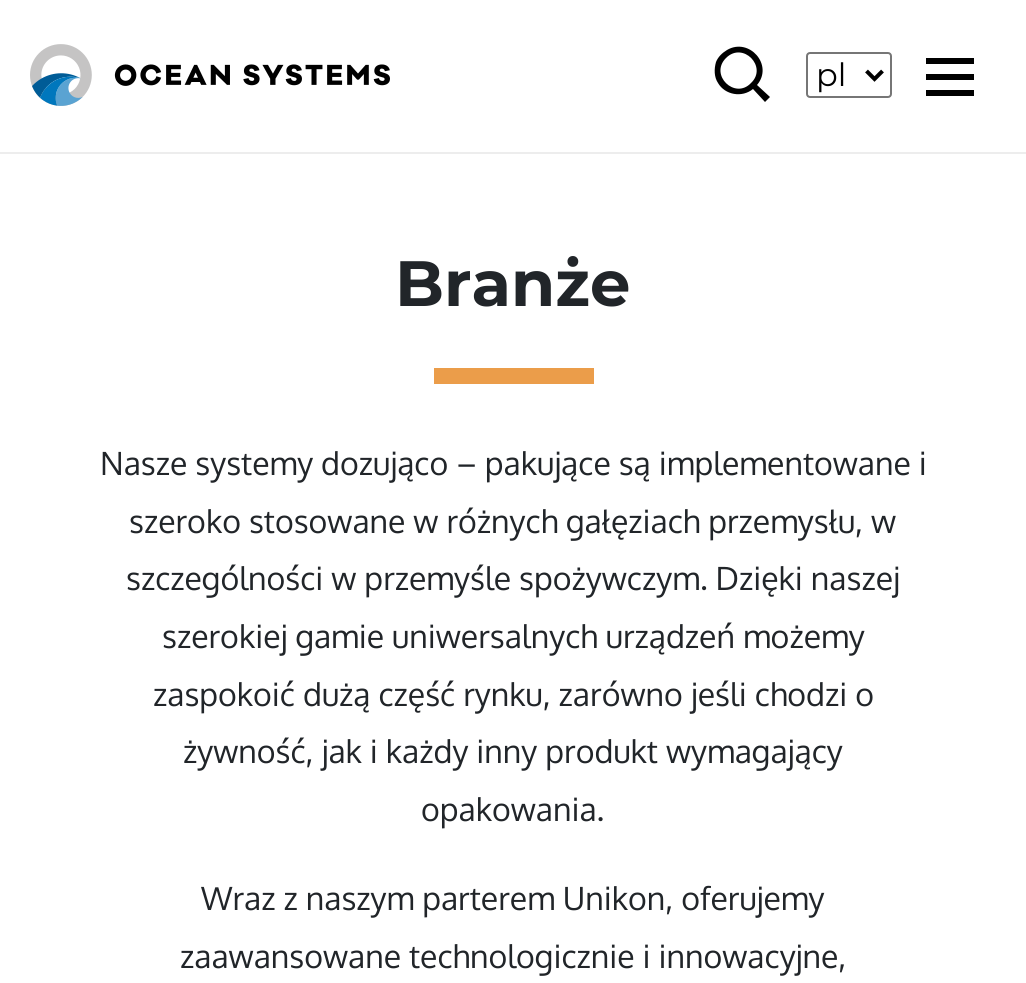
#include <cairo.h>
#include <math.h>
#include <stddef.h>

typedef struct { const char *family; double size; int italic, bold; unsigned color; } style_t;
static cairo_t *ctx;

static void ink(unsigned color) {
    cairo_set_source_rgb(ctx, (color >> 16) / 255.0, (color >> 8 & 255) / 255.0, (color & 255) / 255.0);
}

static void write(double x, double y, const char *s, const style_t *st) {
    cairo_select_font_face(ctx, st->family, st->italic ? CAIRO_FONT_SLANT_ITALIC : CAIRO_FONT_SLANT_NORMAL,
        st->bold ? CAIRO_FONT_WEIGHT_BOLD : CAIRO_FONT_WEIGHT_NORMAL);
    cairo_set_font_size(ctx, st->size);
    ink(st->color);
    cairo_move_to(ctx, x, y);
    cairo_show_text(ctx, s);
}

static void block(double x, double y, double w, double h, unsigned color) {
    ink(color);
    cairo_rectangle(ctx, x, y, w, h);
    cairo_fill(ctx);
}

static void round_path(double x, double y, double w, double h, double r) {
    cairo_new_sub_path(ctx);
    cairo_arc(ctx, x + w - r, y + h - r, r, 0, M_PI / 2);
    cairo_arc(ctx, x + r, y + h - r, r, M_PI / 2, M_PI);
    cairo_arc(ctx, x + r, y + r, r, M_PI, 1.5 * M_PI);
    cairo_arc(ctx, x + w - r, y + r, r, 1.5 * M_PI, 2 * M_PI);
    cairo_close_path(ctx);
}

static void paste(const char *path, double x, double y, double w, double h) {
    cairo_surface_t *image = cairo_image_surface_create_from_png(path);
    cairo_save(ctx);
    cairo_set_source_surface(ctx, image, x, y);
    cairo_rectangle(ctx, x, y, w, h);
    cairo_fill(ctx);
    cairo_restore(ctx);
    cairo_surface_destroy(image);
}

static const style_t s1 = {"Montserrat", 32, 0, 0, 0x000000};
static const style_t s2 = {"Montserrat", 64, 0, 1, 0x212529};
static const style_t s3 = {"Oxygen", 32, 0, 0, 0x212529};

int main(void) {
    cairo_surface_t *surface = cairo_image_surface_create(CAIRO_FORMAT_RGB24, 1026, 983);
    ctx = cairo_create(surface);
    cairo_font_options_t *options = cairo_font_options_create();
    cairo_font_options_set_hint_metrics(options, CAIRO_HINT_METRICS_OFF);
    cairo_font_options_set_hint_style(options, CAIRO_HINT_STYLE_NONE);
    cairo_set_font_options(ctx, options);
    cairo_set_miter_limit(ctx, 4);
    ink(0xffffff);
    cairo_paint(ctx);
    block(0, 152, 1026, 2, 0xededed);
    paste("pic1.png", 30, 44, 360, 62);
    ink(0x000000);
    cairo_new_path(ctx);
    cairo_move_to(ctx, 765, 102);
    cairo_line_to(ctx, 753, 89);
    cairo_curve_to(ctx, 742, 98, 725, 95, 718, 83);
    cairo_curve_to(ctx, 714, 77, 714, 69, 716, 62);
    cairo_curve_to(ctx, 718, 57, 722, 53, 727, 50);
    cairo_curve_to(ctx, 749, 37, 774, 65, 757, 85);
    cairo_line_to(ctx, 770, 97);
    cairo_close_path(ctx);
    cairo_move_to(ctx, 726, 58);
    cairo_curve_to(ctx, 709, 75, 735, 100, 751, 83);
    cairo_curve_to(ctx, 768, 67, 743, 41, 726, 58);
    cairo_close_path(ctx);
    cairo_fill(ctx);
    round_path(807, 53, 84, 44, 3);
    ink(0x767676);
    cairo_stroke(ctx);
    cairo_new_path(ctx);
    cairo_move_to(ctx, 866.5, 71);
    cairo_line_to(ctx, 874.5, 79);
    cairo_line_to(ctx, 882.5, 71);
    ink(0x000000);
    cairo_set_line_width(ctx, 4);
    cairo_stroke(ctx);
    write(816, 86, "pl", &s1);
    block(926, 58, 48, 6, 0x000000);
    block(926, 74, 48, 6, 0x000000);
    block(926, 90, 48, 6, 0x000000);
    write(395, 306, "Branże", &s2);
    block(434, 368, 160, 16, 0xeb9d4a);
    write(100, 475, "Nasze systemy dozująco – pakujące są implementowane i", &s3);
    write(129, 533, "szeroko stosowane w różnych gałęziach przemysłu, w", &s3);
    write(126, 590, "szczególności w przemyśle spożywczym. Dzięki naszej", &s3);
    write(162, 648, "szerokiej gamie uniwersalnych urządzeń możemy", &s3);
    write(153, 706, "zaspokoić dużą część rynku, zarówno jeśli chodzi o", &s3);
    write(183, 763, "żywność, jak i każdy inny produkt wymagający", &s3);
    write(421, 821, "opakowania.", &s3);
    write(201, 910, "Wraz z naszym parterem Unikon, oferujemy", &s3);
    write(180, 968, "zaawansowane technologicznie i innowacyjne,", &s3);
    cairo_surface_write_to_png(surface, "screenshot.png");
    cairo_font_options_destroy(options);
    cairo_destroy(ctx);
    cairo_surface_destroy(surface);
    return 0;
}
